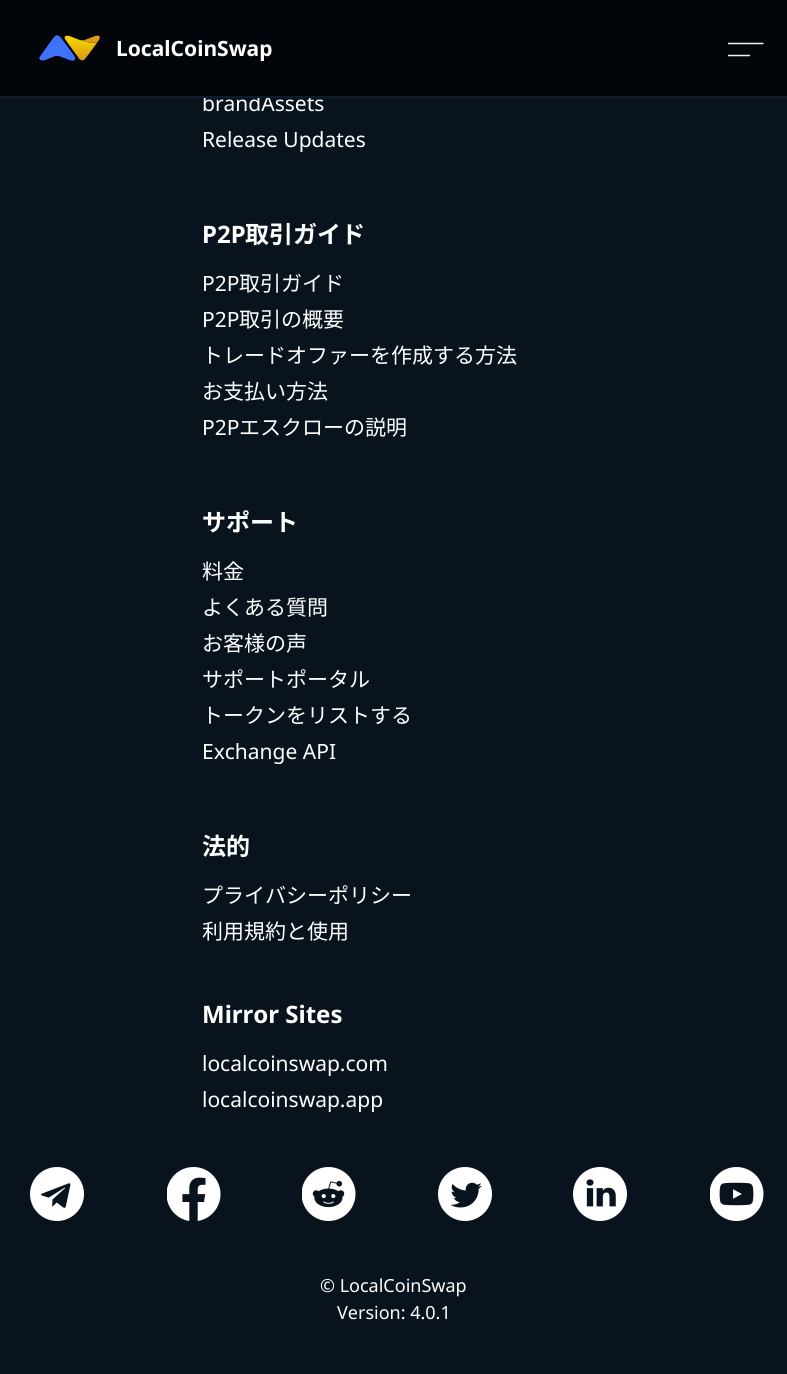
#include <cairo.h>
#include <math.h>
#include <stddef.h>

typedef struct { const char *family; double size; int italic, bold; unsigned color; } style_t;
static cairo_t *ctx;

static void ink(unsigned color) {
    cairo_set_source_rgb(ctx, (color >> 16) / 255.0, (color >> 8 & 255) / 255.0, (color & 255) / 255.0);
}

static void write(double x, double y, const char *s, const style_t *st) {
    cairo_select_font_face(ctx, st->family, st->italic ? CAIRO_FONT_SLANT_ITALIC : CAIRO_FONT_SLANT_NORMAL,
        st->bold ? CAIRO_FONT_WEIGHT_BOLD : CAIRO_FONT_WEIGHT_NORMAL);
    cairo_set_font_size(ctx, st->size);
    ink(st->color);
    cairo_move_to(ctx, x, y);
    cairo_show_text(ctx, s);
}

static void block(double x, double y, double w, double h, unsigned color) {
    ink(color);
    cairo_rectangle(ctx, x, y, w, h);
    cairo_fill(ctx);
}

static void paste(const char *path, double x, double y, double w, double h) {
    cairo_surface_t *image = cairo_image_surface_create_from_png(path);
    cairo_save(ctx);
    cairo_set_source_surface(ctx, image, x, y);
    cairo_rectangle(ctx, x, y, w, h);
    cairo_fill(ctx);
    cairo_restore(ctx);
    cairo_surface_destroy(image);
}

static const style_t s1 = {"Noto Sans", 21, 0, 0, 0xffffff};
static const style_t s2 = {"Noto Sans", 21, 0, 1, 0xffffff};
static const style_t s3 = {"Noto Sans", 24, 0, 1, 0xffffff};
static const style_t s4 = {"Noto Sans JP", 24, 0, 1, 0xffffff};
static const style_t s5 = {"Noto Sans JP", 21, 0, 0, 0xffffff};
static const style_t s6 = {"Noto Sans", 18, 0, 0, 0xffffff};

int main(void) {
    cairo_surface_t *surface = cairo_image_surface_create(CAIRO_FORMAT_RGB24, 787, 1374);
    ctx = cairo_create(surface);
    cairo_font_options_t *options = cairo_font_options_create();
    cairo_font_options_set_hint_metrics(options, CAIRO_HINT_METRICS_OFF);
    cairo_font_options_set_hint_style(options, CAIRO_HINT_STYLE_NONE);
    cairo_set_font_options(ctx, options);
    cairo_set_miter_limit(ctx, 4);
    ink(0x09131d);
    cairo_paint(ctx);
    write(202, 111, "brandAssets", &s1);
    block(0, 0, 787, 96, 0x02050a);
    block(0, 96, 787, 2, 0x0f1c2c);
    paste("pic1.png", 39, 35, 61, 26);
    write(116, 56, "LocalCoinSwap", &s2);
    cairo_save(ctx);
    cairo_rectangle(ctx, 728, 30, 36, 36);
    cairo_clip(ctx);
    cairo_new_path(ctx);
    cairo_move_to(ctx, 727.5, 43.5);
    cairo_line_to(ctx, 763.5, 43.5);
    cairo_move_to(ctx, 727.5, 55.5);
    cairo_line_to(ctx, 750, 55.5);
    ink(0xedf2f7);
    cairo_set_line_width(ctx, 1.5);
    cairo_stroke(ctx);
    cairo_restore(ctx);
    write(202, 147, "Release Updates", &s1);
    write(202, 243, "P2P", &s3);
    write(245, 243, "取引ガイド", &s4);
    write(202, 291, "P2P", &s1);
    write(239, 291, "取引ガイド", &s5);
    write(202, 327, "P2P", &s1);
    write(239, 327, "取引の概要", &s5);
    write(202, 363, "トレードオファーを作成する方法", &s5);
    write(202, 399, "お支払い方法", &s5);
    write(202, 435, "P2P", &s1);
    write(239, 435, "エスクローの説明", &s5);
    write(202, 531, "サポート", &s4);
    write(202, 579, "料金", &s5);
    write(202, 615, "よくある質問", &s5);
    write(202, 651, "お客様の声", &s5);
    write(202, 687, "サポートポータル", &s5);
    write(202, 723, "トークンをリストする", &s5);
    write(202, 759, "Exchange API", &s1);
    write(202, 855, "法的", &s4);
    write(202, 903, "プライバシーポリシー", &s5);
    write(202, 939, "利用規約と使用", &s5);
    write(202, 1023, "Mirror Sites", &s3);
    write(202, 1071, "localcoinswap.com", &s1);
    write(202, 1107, "localcoinswap.app", &s1);
    paste("pic2.png", 30, 1167, 54, 54);
    paste("pic3.png", 167, 1167, 54, 54);
    paste("pic4.png", 302, 1167, 54, 54);
    paste("pic5.png", 438, 1167, 54, 54);
    paste("pic6.png", 573, 1167, 54, 54);
    paste("pic7.png", 710, 1167, 54, 54);
    write(320, 1292, "© LocalCoinSwap", &s6);
    write(337, 1319, "Version: 4.0.1", &s6);
    cairo_surface_write_to_png(surface, "screenshot.png");
    cairo_font_options_destroy(options);
    cairo_destroy(ctx);
    cairo_surface_destroy(surface);
    return 0;
}
